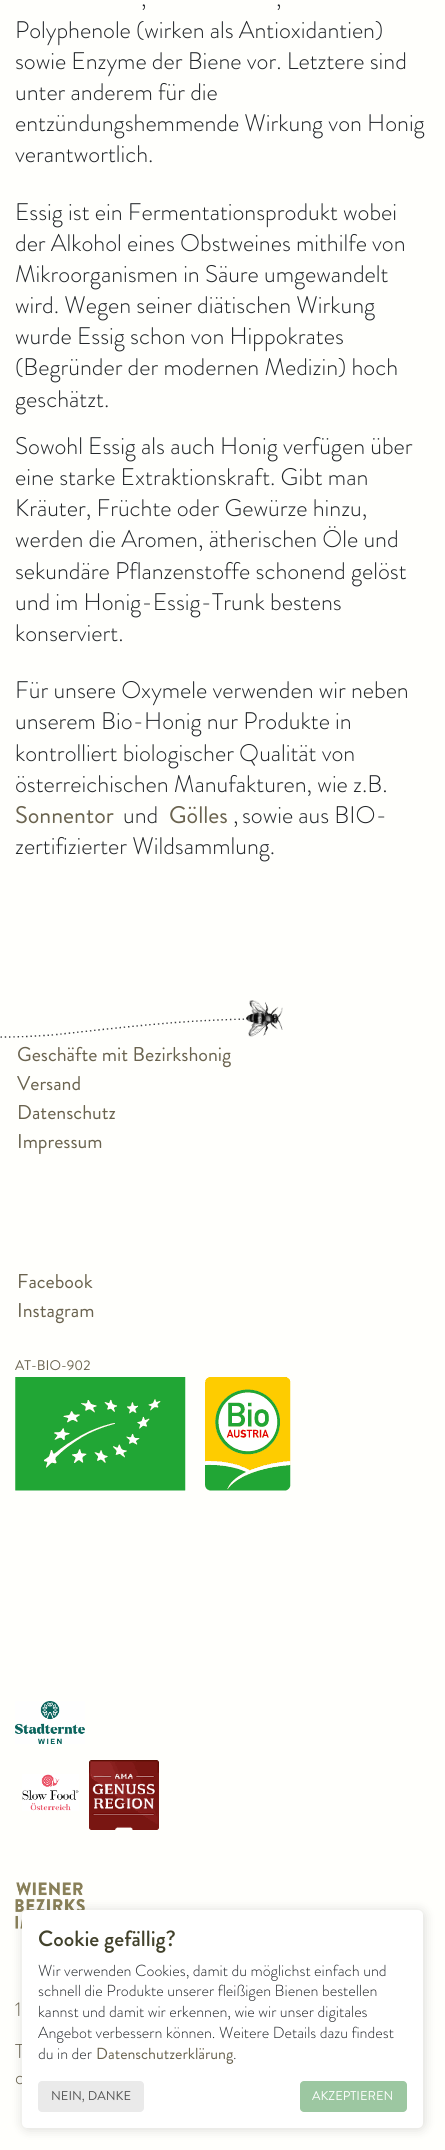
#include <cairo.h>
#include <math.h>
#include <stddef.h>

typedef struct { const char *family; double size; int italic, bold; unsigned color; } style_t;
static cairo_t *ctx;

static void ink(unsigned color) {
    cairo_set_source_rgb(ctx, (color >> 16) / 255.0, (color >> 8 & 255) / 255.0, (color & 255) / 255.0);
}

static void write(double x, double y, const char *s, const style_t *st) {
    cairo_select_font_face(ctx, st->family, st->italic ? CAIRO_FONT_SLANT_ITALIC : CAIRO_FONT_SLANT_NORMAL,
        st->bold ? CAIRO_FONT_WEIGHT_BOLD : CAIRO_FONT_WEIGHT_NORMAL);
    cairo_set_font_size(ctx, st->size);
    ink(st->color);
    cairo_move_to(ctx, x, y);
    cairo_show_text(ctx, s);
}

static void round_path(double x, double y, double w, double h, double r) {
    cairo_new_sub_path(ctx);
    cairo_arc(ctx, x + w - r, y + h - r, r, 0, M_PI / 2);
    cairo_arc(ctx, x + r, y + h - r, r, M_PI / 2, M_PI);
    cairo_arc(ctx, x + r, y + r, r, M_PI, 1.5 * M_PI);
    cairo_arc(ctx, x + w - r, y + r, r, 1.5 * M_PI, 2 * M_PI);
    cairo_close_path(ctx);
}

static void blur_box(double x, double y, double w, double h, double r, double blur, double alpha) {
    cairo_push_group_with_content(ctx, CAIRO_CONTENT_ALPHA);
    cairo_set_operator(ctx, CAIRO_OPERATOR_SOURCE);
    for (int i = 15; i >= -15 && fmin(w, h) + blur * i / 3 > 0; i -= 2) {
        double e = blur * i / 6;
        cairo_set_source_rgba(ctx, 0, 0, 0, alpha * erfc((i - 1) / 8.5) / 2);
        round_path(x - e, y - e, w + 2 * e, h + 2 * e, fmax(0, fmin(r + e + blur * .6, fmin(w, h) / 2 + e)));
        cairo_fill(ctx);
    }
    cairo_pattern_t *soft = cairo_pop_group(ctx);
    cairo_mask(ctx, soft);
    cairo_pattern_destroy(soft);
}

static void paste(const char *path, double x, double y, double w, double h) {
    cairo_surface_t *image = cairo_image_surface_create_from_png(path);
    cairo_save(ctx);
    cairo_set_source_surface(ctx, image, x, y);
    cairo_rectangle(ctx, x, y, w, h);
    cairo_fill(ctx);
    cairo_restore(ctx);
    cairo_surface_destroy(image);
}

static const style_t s1 = {"Brandon Grotesque Light", 24, 0, 0, 0x212529};
static const style_t s2 = {"Brandon Grotesque", 24, 0, 0, 0x6a634f};
static const style_t s3 = {"Brandon Grotesque", 20, 0, 0, 0x6a634f};
static const style_t s4 = {"Brandon Grotesque", 14, 0, 0, 0x6a634f};
static const style_t s5 = {"Brandon Grotesque Light", 20, 0, 0, 0x6a634f};
static const style_t s6 = {"Brandon Grotesque Medium", 22, 0, 0, 0x42422c};
static const style_t s7 = {"Brandon Grotesque Light", 16, 0, 0, 0x212529};
static const style_t s8 = {"Brandon Grotesque", 16, 0, 0, 0x6a634f};
static const style_t s9 = {"Brandon Grotesque", 12.75, 0, 0, 0x555555};
static const style_t s10 = {"Brandon Grotesque", 12.75, 0, 0, 0xffffff};

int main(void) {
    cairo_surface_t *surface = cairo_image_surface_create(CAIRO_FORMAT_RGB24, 445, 2150);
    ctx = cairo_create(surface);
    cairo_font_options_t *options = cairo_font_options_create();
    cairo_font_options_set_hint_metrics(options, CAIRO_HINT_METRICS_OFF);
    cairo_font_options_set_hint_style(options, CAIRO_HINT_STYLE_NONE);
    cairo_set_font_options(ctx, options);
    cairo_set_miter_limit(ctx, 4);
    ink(0xfffffc);
    cairo_paint(ctx);
    write(141, 6, ",", &s1);
    write(276, 6, ",", &s1);
    write(15, 38, "Polyphenole (wirken als Antioxidantien)", &s1);
    write(15, 69, "sowie Enzyme der Biene vor. Letztere sind", &s1);
    write(15, 100, "unter anderem für die", &s1);
    write(15, 131, "entzündungshemmende Wirkung von Honig", &s1);
    write(15, 162, "verantwortlich.", &s1);
    write(15, 220, "Essig ist ein Fermentationsprodukt wobei", &s1);
    write(15, 251, "der Alkohol eines Obstweines mithilfe von", &s1);
    write(15, 282, "Mikroorganismen in Säure umgewandelt", &s1);
    write(15, 313, "wird. Wegen seiner diätischen Wirkung", &s1);
    write(15, 344, "wurde Essig schon von Hippokrates", &s1);
    write(15, 375, "(Begründer der modernen Medizin) hoch", &s1);
    write(15, 407, "geschätzt.", &s1);
    write(15, 454, "Sowohl Essig als auch Honig verfügen über", &s1);
    write(15, 485, "eine starke Extraktionskraft. Gibt man", &s1);
    write(15, 516, "Kräuter, Früchte oder Gewürze hinzu,", &s1);
    write(15, 547, "werden die Aromen, ätherischen Öle und", &s1);
    write(15, 579, "sekundäre Pflanzenstoffe schonend gelöst", &s1);
    write(15, 610, "und im Honig-Essig-Trunk bestens", &s1);
    write(15, 641, "konserviert.", &s1);
    write(15, 698, "Für unsere Oxymele verwenden wir neben", &s1);
    write(15, 729, "unserem Bio-Honig nur Produkte in", &s1);
    write(15, 761, "kontrolliert biologischer Qualität von", &s1);
    write(15, 792, "österreichischen Manufakturen, wie z.B.", &s1);
    write(15, 823, "Sonnentor", &s2);
    write(123, 823, "und", &s1);
    write(169, 823, "Gölles", &s2);
    write(233, 823, ",", &s1);
    write(242, 823, "sowie aus BIO-", &s1);
    write(15, 854, "zertifizierter Wildsammlung.", &s1);
    paste("pic1.png", 0, 1000, 283, 38);
    write(17, 1061, "Geschäfte mit Bezirkshonig", &s3);
    write(17, 1090, "Versand", &s3);
    write(17, 1119, "Datenschutz", &s3);
    write(17, 1148, "Impressum", &s3);
    write(17, 1288, "Facebook", &s3);
    write(17, 1317, "Instagram", &s3);
    write(15, 1370, "AT-BIO-902", &s4);
    paste("pic2.png", 15, 1377, 276, 114);
    paste("pic3.png", 15, 1701, 70, 43);
    paste("pic4.png", 22, 1774, 57, 37);
    paste("pic5.png", 89, 1760, 70, 70);
    paste("pic6.png", 15, 1882, 70, 47);
    write(15, 2016, "1", &s5);
    write(15, 2058, "T", &s5);
    write(15, 2084, "o", &s5);
    ink(0x000000);
    blur_box(23, 1911, 401, 218, 5, 6, 0.15);
    ink(0xffffff);
    round_path(22, 1910, 401, 218, 5);
    cairo_fill(ctx);
    write(38, 1946, "Cookie gefällig?", &s6);
    write(38, 1976, "Wir verwenden Cookies, damit du möglichst einfach und", &s7);
    write(38, 1996, "schnell die Produkte unserer fleißigen Bienen bestellen", &s7);
    write(38, 2017, "kannst und damit wir erkennen, wie wir unser digitales", &s7);
    write(38, 2038, "Angebot verbessern können. Weitere Details dazu findest", &s7);
    write(38, 2059, "du in der", &s7);
    write(96, 2059, "Datenschutzerklärung", &s8);
    write(233, 2059, ".", &s7);
    ink(0xeaeaea);
    round_path(38, 2081, 106, 31, 4);
    cairo_fill(ctx);
    write(51, 2100, "NEIN, DANKE", &s9);
    ink(0x9cc7a1);
    round_path(300, 2081, 107, 31, 4);
    cairo_fill(ctx);
    write(312, 2100, "AKZEPTIEREN", &s10);
    cairo_surface_write_to_png(surface, "screenshot.png");
    cairo_font_options_destroy(options);
    cairo_destroy(ctx);
    cairo_surface_destroy(surface);
    return 0;
}
